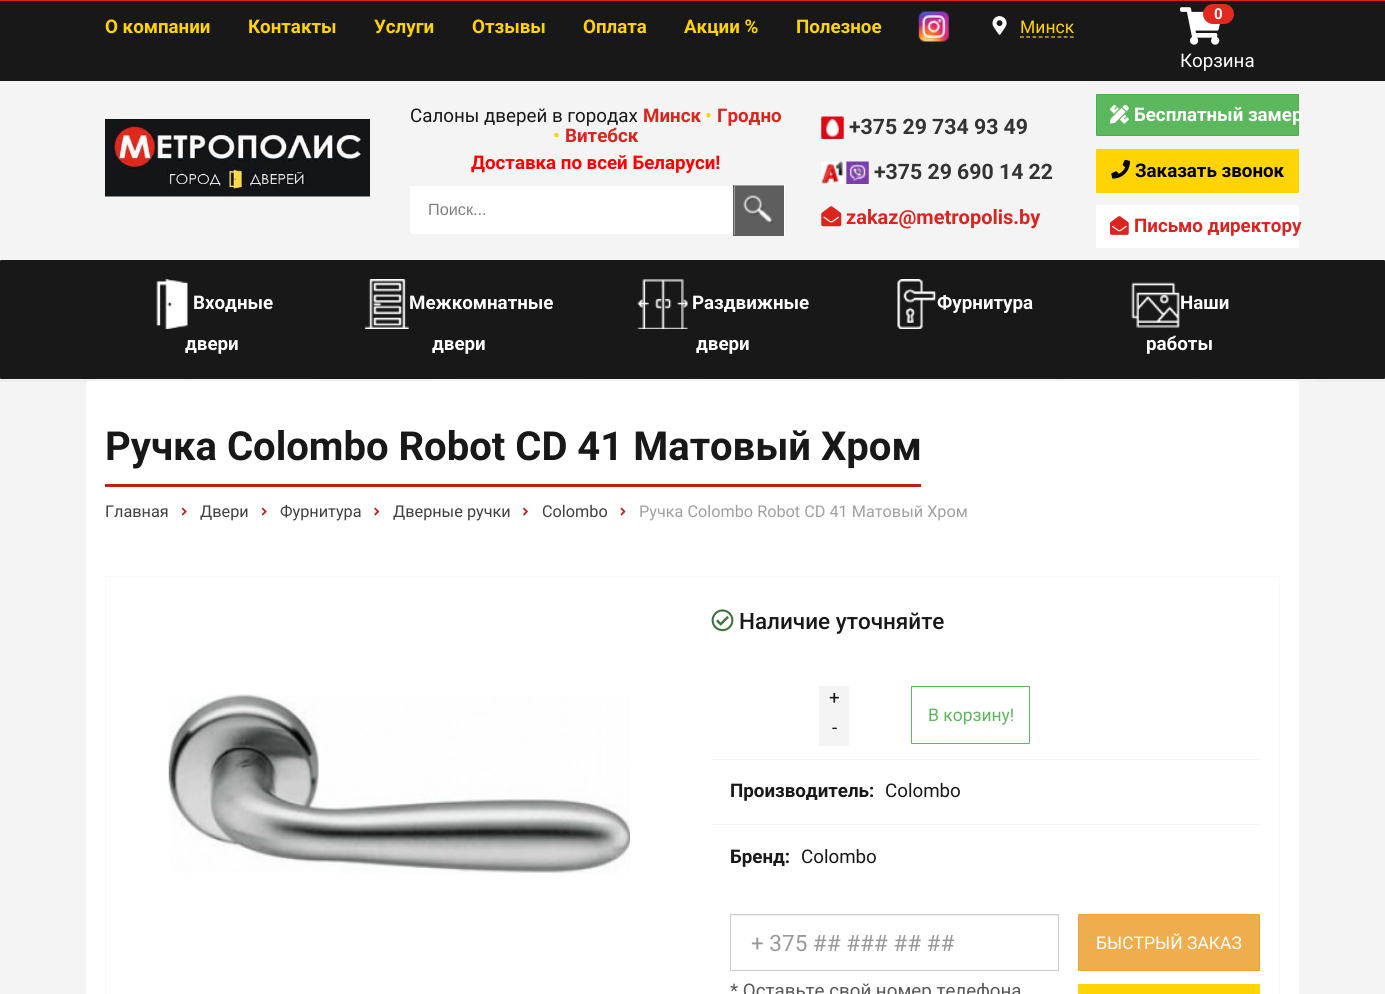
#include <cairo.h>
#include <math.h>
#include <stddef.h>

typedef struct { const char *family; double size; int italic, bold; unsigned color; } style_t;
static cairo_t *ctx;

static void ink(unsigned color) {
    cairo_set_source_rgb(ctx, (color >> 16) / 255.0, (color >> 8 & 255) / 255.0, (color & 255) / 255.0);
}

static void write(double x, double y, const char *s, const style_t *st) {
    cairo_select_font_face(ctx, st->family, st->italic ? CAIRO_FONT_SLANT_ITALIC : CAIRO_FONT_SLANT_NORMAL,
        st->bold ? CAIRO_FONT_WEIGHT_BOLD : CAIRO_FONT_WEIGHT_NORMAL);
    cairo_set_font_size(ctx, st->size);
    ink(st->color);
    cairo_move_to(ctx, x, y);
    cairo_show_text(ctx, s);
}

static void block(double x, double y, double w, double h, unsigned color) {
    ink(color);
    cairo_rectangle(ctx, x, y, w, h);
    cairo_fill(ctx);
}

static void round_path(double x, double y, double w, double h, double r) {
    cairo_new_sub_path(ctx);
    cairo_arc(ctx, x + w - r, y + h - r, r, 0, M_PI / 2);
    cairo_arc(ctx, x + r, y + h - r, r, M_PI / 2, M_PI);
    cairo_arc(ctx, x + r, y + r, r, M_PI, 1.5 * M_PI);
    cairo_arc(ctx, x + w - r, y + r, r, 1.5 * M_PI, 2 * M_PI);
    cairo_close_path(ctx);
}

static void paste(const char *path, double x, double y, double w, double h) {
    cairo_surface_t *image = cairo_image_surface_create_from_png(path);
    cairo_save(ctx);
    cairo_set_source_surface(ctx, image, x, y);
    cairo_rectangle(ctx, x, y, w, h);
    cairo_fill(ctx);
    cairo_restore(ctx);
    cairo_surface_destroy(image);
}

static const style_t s1 = {"Roboto", 18.75, 0, 1, 0xffd405};
static const style_t s2 = {"Roboto", 17.5, 0, 0, 0xffd405};
static const style_t s3 = {"Roboto", 15, 0, 1, 0xffffff};
static const style_t s4 = {"Roboto", 18.75, 0, 0, 0xffffff};
static const style_t s5 = {"Roboto", 18.75, 0, 0, 0x181818};
static const style_t s6 = {"Roboto", 18.75, 0, 1, 0xdc241e};
static const style_t s7 = {"Roboto", 18.75, 0, 1, 0xff0000};
static const style_t s8 = {"Liberation Sans", 16.25, 0, 0, 0x7f7f7f};
static const style_t s9 = {"Roboto", 21.25, 0, 1, 0x333333};
static const style_t s10 = {"Roboto", 20, 0, 1, 0xdc241e};
static const style_t s11 = {"Roboto", 18.75, 0, 1, 0xffffff};
static const style_t s12 = {"Roboto", 18.75, 0, 1, 0x000000};
static const style_t s13 = {"Roboto", 40, 0, 1, 0x181818};
static const style_t s14 = {"Roboto", 16.25, 0, 0, 0x404040};
static const style_t s15 = {"Roboto", 16.25, 0, 0, 0xa0a0a0};
static const style_t s16 = {"Roboto Medium", 22.5, 0, 0, 0x181818};
static const style_t s17 = {"Roboto", 17.5, 0, 0, 0x5cb85c};
static const style_t s18 = {"Roboto", 18.75, 0, 1, 0x181818};
static const style_t s19 = {"Roboto", 22.5, 0, 0, 0x999999};
static const style_t s20 = {"Roboto", 18.75, 0, 0, 0x585858};
static const style_t s21 = {"Roboto", 17.5, 0, 0, 0xffffff};

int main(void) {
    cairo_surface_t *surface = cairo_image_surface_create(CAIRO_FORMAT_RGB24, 1385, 994);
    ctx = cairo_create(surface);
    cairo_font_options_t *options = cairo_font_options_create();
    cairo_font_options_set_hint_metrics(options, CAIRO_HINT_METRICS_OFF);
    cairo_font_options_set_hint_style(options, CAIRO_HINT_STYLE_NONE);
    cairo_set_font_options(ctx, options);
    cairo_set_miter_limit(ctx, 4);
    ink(0xf4f4f4);
    cairo_paint(ctx);
    block(0, 0, 1385, 1, 0xdc241e);
    block(0, 1, 1385, 80, 0x181818);
    write(105, 33, "О компании", &s1);
    write(248, 33, "Контакты", &s1);
    write(374, 33, "Услуги", &s1);
    write(472, 33, "Отзывы", &s1);
    write(583, 33, "Оплата", &s1);
    write(684, 33, "Акции %", &s1);
    write(796, 33, "Полезное", &s1);
    paste("pic1.png", 918, 11, 31, 31);
    paste("pic2.png", 992, 16, 15, 19);
    write(1020, 33, "Минск", &s2);
    cairo_new_path(ctx);
    cairo_move_to(ctx, 1020, 37);
    cairo_line_to(ctx, 1074, 37);
    cairo_set_line_width(ctx, 1.2);
    cairo_set_dash(ctx, (double[]){3.75, 2.5}, 2, 0);
    cairo_stroke(ctx);
    paste("pic3.png", 1180, 7, 40, 38);
    ink(0xe2281f);
    round_path(1203, 4, 31, 20, 10);
    cairo_fill(ctx);
    write(1214, 19, "0", &s3);
    write(1180, 67, "Корзина", &s4);
    paste("pic4.png", 105, 119, 265, 78);
    write(410, 122, "Салоны дверей в городах", &s5);
    write(643, 122, "Минск", &s6);
    write(705, 122, "•", &s1);
    write(717, 122, "Гродно", &s6);
    write(553, 142, "•", &s1);
    write(565, 142, "Витебск", &s6);
    write(471, 169, "Доставка по всей Беларуси!", &s7);
    block(410, 185, 375, 50, 0xffffff);
    block(409, 185, 324, 1, 0xf1f4f7);
    block(409, 234, 324, 1, 0xf1f4f7);
    block(409, 185, 1, 50, 0xf1f4f7);
    write(428, 215, "Поиск...", &s8);
    block(733, 185, 51, 51, 0x5e5e5e);
    cairo_save(ctx);
    cairo_rectangle(ctx, 734, 185, 50, 50);
    cairo_clip(ctx);
    ink(0x9e9e9e);
    cairo_set_fill_rule(ctx, CAIRO_FILL_RULE_EVEN_ODD);
    cairo_new_path(ctx);
    cairo_move_to(ctx, 610, 61);
    cairo_line_to(ctx, 908, 61);
    cairo_line_to(ctx, 908, 359);
    cairo_line_to(ctx, 610, 359);
    cairo_close_path(ctx);
    cairo_move_to(ctx, 735, 186);
    cairo_line_to(ctx, 785, 186);
    cairo_line_to(ctx, 785, 236);
    cairo_line_to(ctx, 735, 236);
    cairo_close_path(ctx);
    cairo_fill(ctx);
    cairo_restore(ctx);
    paste("pic5.png", 743, 195, 31, 29);
    paste("pic6.png", 821, 116, 23, 23);
    write(849, 134, "+375 29 734 93 49", &s9);
    paste("pic7.png", 821, 161, 48, 23);
    write(874, 179, "+375 29 690 14 22", &s9);
    paste("pic8.png", 821, 206, 21, 21);
    write(846, 224, "zakaz@metropolis.by", &s10);
    ink(0x5cb85c);
    round_path(1096.5, 94.5, 202, 41, 0.5);
    cairo_fill_preserve(ctx);
    ink(0x4cae4c);
    cairo_set_line_width(ctx, 1);
    cairo_set_dash(ctx, NULL, 0, 0);
    cairo_stroke(ctx);
    paste("pic9.png", 1110, 104, 19, 20);
    write(1134, 121, "Бесплатный замер", &s11);
    ink(0xffd405);
    round_path(1096, 149, 203, 44, 1);
    cairo_fill(ctx);
    paste("pic10.png", 1111, 159, 19, 20);
    write(1135, 177, "Заказать звонок", &s12);
    ink(0xffffff);
    round_path(1096, 205, 203, 43, 1);
    cairo_fill(ctx);
    paste("pic11.png", 1110, 216, 19, 19);
    write(1134, 232, "Письмо директору", &s6);
    ink(0x181818);
    round_path(0, 260, 1385, 119, 1);
    cairo_fill(ctx);
    paste("pic12.png", 156, 279, 32, 50);
    write(193, 309, "Входные", &s11);
    write(185, 350, "двери", &s11);
    paste("pic13.png", 364, 279, 45, 50);
    write(409, 309, "Межкомнатные", &s11);
    write(432, 350, "двери", &s11);
    paste("pic14.png", 637, 279, 51, 50);
    write(692, 309, "Раздвижные", &s11);
    write(696, 350, "двери", &s11);
    paste("pic15.png", 897, 279, 40, 50);
    write(937, 309, "Фурнитура", &s11);
    paste("pic16.png", 1131, 282, 49, 46);
    write(1180, 309, "Наши", &s11);
    write(1146, 350, "работы", &s11);
    paste("pic17.png", 0, 380, 1385, 2);
    block(86, 381, 1213, 613, 0xffffff);
    block(105, 484, 816, 3, 0xc21f13);
    write(105, 460, "Ручка Colombo Robot CD 41 Матовый Хром", &s13);
    write(105, 517, "Главная", &s14);
    paste("pic18.png", 181, 507, 6, 9);
    write(200, 517, "Двери", &s14);
    paste("pic18.png", 261, 507, 6, 9);
    write(280, 517, "Фурнитура", &s14);
    paste("pic19.png", 374, 507, 6, 9);
    write(393, 517, "Дверные ручки", &s14);
    paste("pic20.png", 523, 507, 5, 9);
    write(542, 517, "Colombo", &s14);
    paste("pic21.png", 620, 507, 6, 9);
    write(639, 517, "Ручка Colombo Robot CD 41 Матовый Хром", &s15);
    cairo_rectangle(ctx, 105.5, 576.5, 1174, 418);
    ink(0xf8f9f9);
    cairo_stroke(ctx);
    paste("pic22.png", 168, 694, 462, 180);
    paste("pic23.png", 711, 609, 23, 23);
    write(739, 629, "Наличие уточняйте", &s16);
    ink(0xf4f4f4);
    round_path(819, 686, 30, 30, 1);
    cairo_fill(ctx);
    write(829, 704, "+", &s5);
    ink(0xf4f4f4);
    round_path(819, 716, 30, 30, 1);
    cairo_fill(ctx);
    write(832, 734, "-", &s5);
    round_path(911.5, 686.5, 118, 57, 0.5);
    ink(0x5cb85c);
    cairo_stroke(ctx);
    write(928, 721, "В корзину!", &s17);
    block(711, 759, 550, 1, 0xf3f3f3);
    write(730, 797, "Производитель:", &s18);
    write(885, 797, "Colombo", &s5);
    block(711, 824, 550, 1, 0xf3f3f3);
    write(730, 863, "Бренд:", &s18);
    write(801, 863, "Colombo", &s5);
    block(731, 915, 327, 1, 0xececec);
    round_path(730.5, 914.5, 328, 56, 0.5);
    ink(0xcccccc);
    cairo_stroke(ctx);
    write(751, 951, "+ 375 ## ### ## ##", &s19);
    write(730, 997, "* Оставьте свой номер телефона", &s20);
    ink(0xf0ad4e);
    round_path(1078.5, 914.5, 181, 56, 0.5);
    cairo_fill_preserve(ctx);
    ink(0xeea236);
    cairo_stroke(ctx);
    write(1096, 949, "БЫСТРЫЙ ЗАКАЗ", &s21);
    ink(0xffd405);
    round_path(1078, 984, 182, 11, 1);
    cairo_fill(ctx);
    cairo_surface_write_to_png(surface, "screenshot.png");
    cairo_font_options_destroy(options);
    cairo_destroy(ctx);
    cairo_surface_destroy(surface);
    return 0;
}
